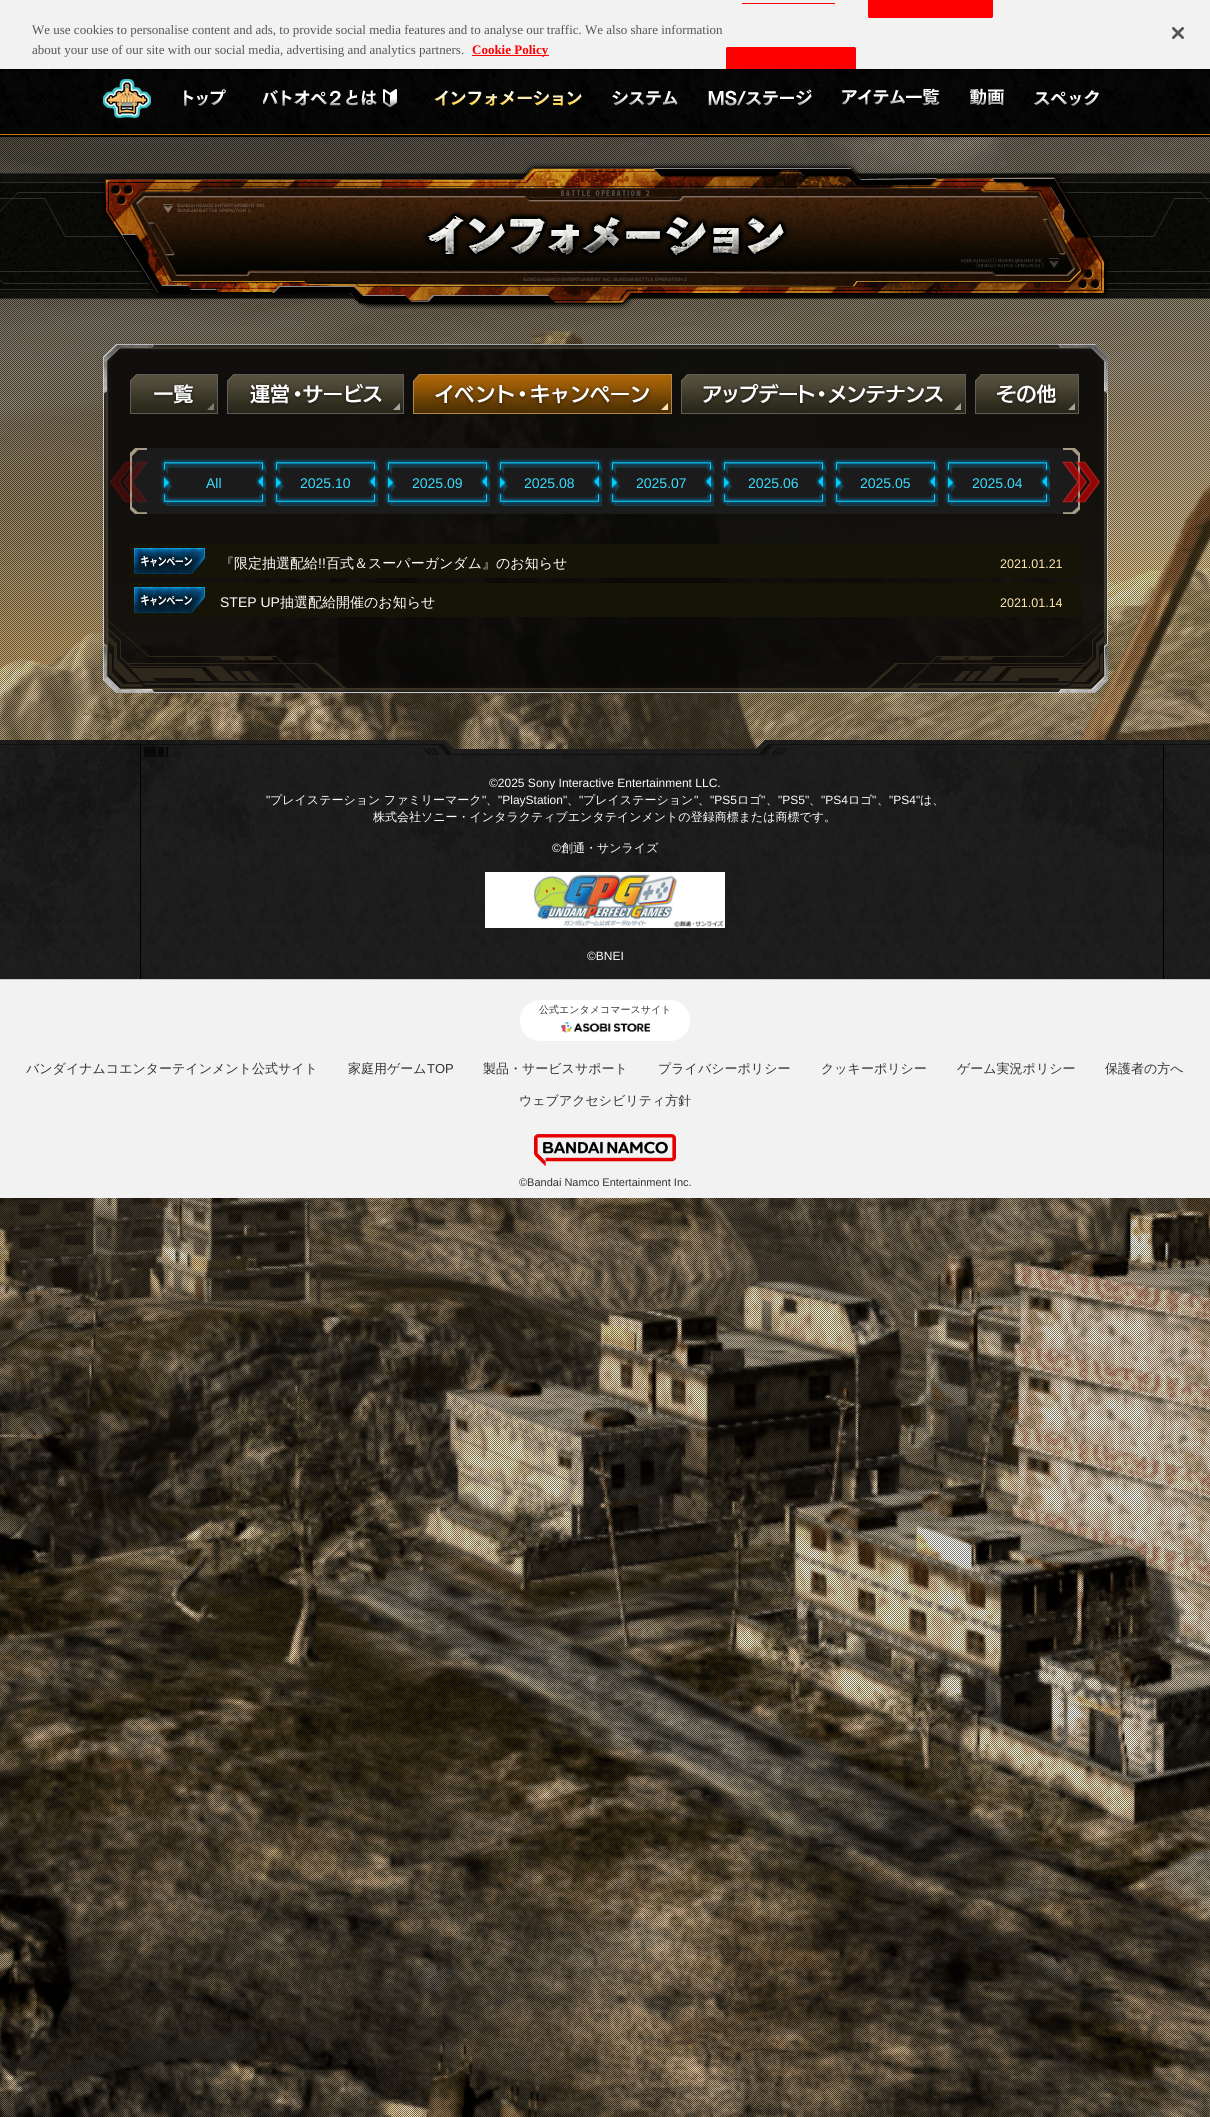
#include <cairo.h>
#include <math.h>
#include <stddef.h>

typedef struct { const char *family; double size; int italic, bold; unsigned color; } style_t;
static cairo_t *ctx;

static void ink(unsigned color) {
    cairo_set_source_rgb(ctx, (color >> 16) / 255.0, (color >> 8 & 255) / 255.0, (color & 255) / 255.0);
}

static void write(double x, double y, const char *s, const style_t *st) {
    cairo_select_font_face(ctx, st->family, st->italic ? CAIRO_FONT_SLANT_ITALIC : CAIRO_FONT_SLANT_NORMAL,
        st->bold ? CAIRO_FONT_WEIGHT_BOLD : CAIRO_FONT_WEIGHT_NORMAL);
    cairo_set_font_size(ctx, st->size);
    ink(st->color);
    cairo_move_to(ctx, x, y);
    cairo_show_text(ctx, s);
}

static void block(double x, double y, double w, double h, unsigned color) {
    ink(color);
    cairo_rectangle(ctx, x, y, w, h);
    cairo_fill(ctx);
}

static void round_path(double x, double y, double w, double h, double r) {
    cairo_new_sub_path(ctx);
    cairo_arc(ctx, x + w - r, y + h - r, r, 0, M_PI / 2);
    cairo_arc(ctx, x + r, y + h - r, r, M_PI / 2, M_PI);
    cairo_arc(ctx, x + r, y + r, r, M_PI, 1.5 * M_PI);
    cairo_arc(ctx, x + w - r, y + r, r, 1.5 * M_PI, 2 * M_PI);
    cairo_close_path(ctx);
}

static void blur_box(double x, double y, double w, double h, double r, double blur, double alpha) {
    cairo_push_group_with_content(ctx, CAIRO_CONTENT_ALPHA);
    cairo_set_operator(ctx, CAIRO_OPERATOR_SOURCE);
    for (int i = 15; i >= -15 && fmin(w, h) + blur * i / 3 > 0; i -= 2) {
        double e = blur * i / 6;
        cairo_set_source_rgba(ctx, 0, 0, 0, alpha * erfc((i - 1) / 8.5) / 2);
        round_path(x - e, y - e, w + 2 * e, h + 2 * e, fmax(0, fmin(r + e + blur * .6, fmin(w, h) / 2 + e)));
        cairo_fill(ctx);
    }
    cairo_pattern_t *soft = cairo_pop_group(ctx);
    cairo_mask(ctx, soft);
    cairo_pattern_destroy(soft);
}

static void paste(const char *path, double x, double y, double w, double h) {
    cairo_surface_t *image = cairo_image_surface_create_from_png(path);
    cairo_save(ctx);
    cairo_set_source_surface(ctx, image, x, y);
    cairo_rectangle(ctx, x, y, w, h);
    cairo_fill(ctx);
    cairo_restore(ctx);
    cairo_surface_destroy(image);
}

static const style_t s1 = {"Liberation Serif", 13, 0, 0, 0x555555};
static const style_t s2 = {"Liberation Serif", 13, 0, 1, 0xff0000};
static const style_t s3 = {"Liberation Sans", 14, 0, 0, 0x38dcff};
static const style_t s4 = {"WenQuanYi Zen Hei Medium", 14, 0, 0, 0xffffff};
static const style_t s5 = {"Liberation Sans", 14, 0, 0, 0xffffff};
static const style_t s6 = {"Liberation Sans", 12.5, 0, 0, 0xffe7b3};
static const style_t s7 = {"Liberation Sans", 12, 0, 0, 0xffffff};
static const style_t s8 = {"WenQuanYi Zen Hei Medium", 12, 0, 0, 0xffffff};
static const style_t s9 = {"WenQuanYi Zen Hei Medium", 10, 0, 0, 0x333333};
static const style_t s10 = {"WenQuanYi Zen Hei Medium", 13, 0, 0, 0x333333};
static const style_t s11 = {"Liberation Sans", 13, 0, 0, 0x333333};
static const style_t s12 = {"Liberation Sans", 11, 0, 0, 0x333333};

int main(void) {
    cairo_surface_t *surface = cairo_image_surface_create(CAIRO_FORMAT_RGB24, 1210, 2117);
    ctx = cairo_create(surface);
    cairo_font_options_t *options = cairo_font_options_create();
    cairo_font_options_set_hint_metrics(options, CAIRO_HINT_METRICS_OFF);
    cairo_font_options_set_hint_style(options, CAIRO_HINT_STYLE_NONE);
    cairo_set_font_options(ctx, options);
    cairo_set_miter_limit(ctx, 4);
    ink(0xffffff);
    cairo_paint(ctx);
    paste("pic2.png", 242, 69, 363, 68);
    paste("pic3.png", 0, 69, 242, 68);
    paste("pic4.png", 605, 69, 605, 68);
    paste("pic5.png", 103, 79, 48, 39);
    paste("pic6.png", 184, 89, 42, 17);
    paste("pic7.png", 263, 89, 134, 18);
    paste("pic8.png", 434, 90, 148, 16);
    paste("pic9.png", 612, 90, 66, 16);
    paste("pic10.png", 708, 89, 104, 17);
    paste("pic11.png", 841, 88, 99, 18);
    paste("pic12.png", 970, 88, 34, 18);
    paste("pic13.png", 1033, 90, 66, 16);
    ink(0x000000);
    blur_box(0, 0, 1210, 69, 0, 9, 0.2);
    block(0, 0, 1210, 69, 0xf2f2f2);
    write(32, 34, "We use cookies to personalise content and ads, to provide social media features and to analyse our traffic. We also share information", &s1);
    write(32, 54, "about your use of our site with our social media, advertising and analytics partners.", &s1);
    block(472, 55, 77, 1, 0xff0000);
    write(472, 54, "Cookie Policy", &s2);
    block(742, 3, 93, 1, 0xff0000);
    cairo_new_path(ctx);
    cairo_move_to(ctx, 868, 0);
    cairo_line_to(ctx, 993, 0);
    cairo_line_to(ctx, 993, 16);
    cairo_curve_to(ctx, 993, 17, 992, 18, 991, 18);
    cairo_line_to(ctx, 870, 18);
    cairo_curve_to(ctx, 869, 18, 868, 17, 868, 16);
    cairo_close_path(ctx);
    cairo_fill(ctx);
    round_path(868.5, -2.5, 124, 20, 1.5);
    cairo_set_line_width(ctx, 1);
    cairo_stroke(ctx);
    cairo_new_path(ctx);
    cairo_move_to(ctx, 728, 47);
    cairo_line_to(ctx, 854, 47);
    cairo_curve_to(ctx, 855, 47, 856, 48, 856, 49);
    cairo_line_to(ctx, 856, 69);
    cairo_line_to(ctx, 726, 69);
    cairo_line_to(ctx, 726, 49);
    cairo_curve_to(ctx, 726, 48, 727, 47, 728, 47);
    cairo_close_path(ctx);
    cairo_fill(ctx);
    cairo_save(ctx);
    cairo_rectangle(ctx, 0, 0, 1210, 69);
    cairo_clip(ctx);
    round_path(726.5, 47.5, 129, 41, 1.5);
    cairo_stroke(ctx);
    cairo_restore(ctx);
    paste("pic1.png", 1172, 27, 12, 12);
    paste("pic14.png", 0, 137, 1210, 1980);
    paste("pic15.png", 0, 173, 1210, 126);
    paste("pic16.png", 100, 163, 1010, 147);
    paste("pic17.png", 103, 344, 1005, 50);
    paste("pic18.png", 103, 394, 1005, 223);
    paste("pic19.png", 130, 374, 7, 7);
    paste("pic20.png", 130, 374, 88, 40);
    paste("pic21.png", 227, 374, 7, 7);
    paste("pic22.png", 227, 374, 177, 40);
    paste("pic23.png", 413, 374, 259, 40);
    paste("pic24.png", 681, 374, 7, 7);
    paste("pic25.png", 681, 374, 285, 40);
    paste("pic26.png", 975, 374, 7, 7);
    paste("pic27.png", 975, 374, 104, 40);
    paste("pic28.png", 130, 448, 950, 66);
    paste("pic29.png", 110, 461, 38, 42);
    paste("pic30.png", 160, 458, 107, 48);
    write(206, 488, "All", &s3);
    paste("pic30.png", 272, 458, 107, 48);
    write(300, 488, "2025.10", &s3);
    paste("pic30.png", 384, 458, 107, 48);
    write(412, 488, "2025.09", &s3);
    paste("pic30.png", 496, 458, 107, 48);
    write(524, 488, "2025.08", &s3);
    paste("pic30.png", 608, 458, 107, 48);
    write(636, 488, "2025.07", &s3);
    paste("pic30.png", 720, 458, 107, 48);
    write(748, 488, "2025.06", &s3);
    paste("pic30.png", 832, 458, 107, 48);
    write(860, 488, "2025.05", &s3);
    paste("pic31.png", 944, 458, 106, 48);
    write(972, 488, "2025.04", &s3);
    paste("pic32.png", 1062, 461, 38, 42);
    block(130, 544, 950, 34, 0x151407);
    paste("pic33.png", 134, 548, 71, 26);
    write(220, 568, "『限定抽選配給", &s4);
    write(318, 568, "!!", &s5);
    write(326, 568, "百式＆スーパーガンダム』のお知らせ", &s4);
    write(1000, 568, "2021.01.21", &s6);
    block(130, 583, 950, 34, 0x151407);
    paste("pic33.png", 134, 587, 71, 26);
    write(220, 607, "STEP UP", &s5);
    write(280, 607, "抽選配給開催のお知らせ", &s4);
    write(1000, 607, "2021.01.14", &s6);
    paste("pic34.png", 103, 617, 1005, 76);
    paste("pic35.png", 0, 740, 1210, 239);
    write(489, 787, "©2025 Sony Interactive Entertainment LLC.", &s7);
    write(266, 804, "\"", &s7);
    write(270, 804, "プレイステーション ファミリーマーク", &s8);
    write(482, 804, "\"", &s7);
    write(486, 804, "、", &s8);
    write(498, 804, "\"PlayStation\"", &s7);
    write(567, 804, "、", &s8);
    write(579, 804, "\"", &s7);
    write(583, 804, "プレイステーション", &s8);
    write(694, 804, "\"", &s7);
    write(698, 804, "、", &s8);
    write(710, 804, "\"PS5", &s7);
    write(737, 804, "ロゴ", &s8);
    write(761, 804, "\"", &s7);
    write(766, 804, "、", &s8);
    write(778, 804, "\"PS5\"", &s7);
    write(809, 804, "、", &s8);
    write(821, 804, "\"PS4", &s7);
    write(848, 804, "ロゴ", &s8);
    write(872, 804, "\"", &s7);
    write(877, 804, "、", &s8);
    write(889, 804, "\"PS4\"", &s7);
    write(920, 804, "は、", &s8);
    write(373, 821, "株式会社ソニー・インタラクティブエンタテインメントの登録商標または商標です。", &s8);
    write(552, 852, "©", &s7);
    write(561, 852, "創通・サンライズ", &s8);
    paste("pic36.png", 485, 872, 240, 56);
    write(587, 960, "©BNEI", &s7);
    block(0, 979, 1210, 1, 0xcccccc);
    block(0, 980, 1210, 218, 0xf2f2f2);
    ink(0xffffff);
    round_path(520, 1000, 170, 41, 20.5);
    cairo_fill(ctx);
    paste("pic37.png", 561, 1022, 89, 11);
    round_path(520.5, 1000.5, 169, 40, 20);
    cairo_stroke(ctx);
    write(539, 1013, "公式エンタメコマースサイト", &s9);
    write(26, 1073, "バンダイナムコエンターテインメント公式サイト", &s10);
    write(348, 1073, "家庭用ゲーム", &s10);
    write(427, 1073, "TOP", &s11);
    write(483, 1073, "製品・サービスサポート", &s10);
    write(658, 1073, "プライバシーポリシー", &s10);
    write(821, 1073, "クッキーポリシー", &s10);
    write(957, 1073, "ゲーム実況ポリシー", &s10);
    write(1105, 1073, "保護者の方へ", &s10);
    write(519, 1105, "ウェブアクセシビリティ方針", &s10);
    paste("pic38.png", 534, 1134, 142, 33);
    write(519, 1186, "©Bandai Namco Entertainment Inc.", &s12);
    cairo_surface_write_to_png(surface, "screenshot.png");
    cairo_font_options_destroy(options);
    cairo_destroy(ctx);
    cairo_surface_destroy(surface);
    return 0;
}
